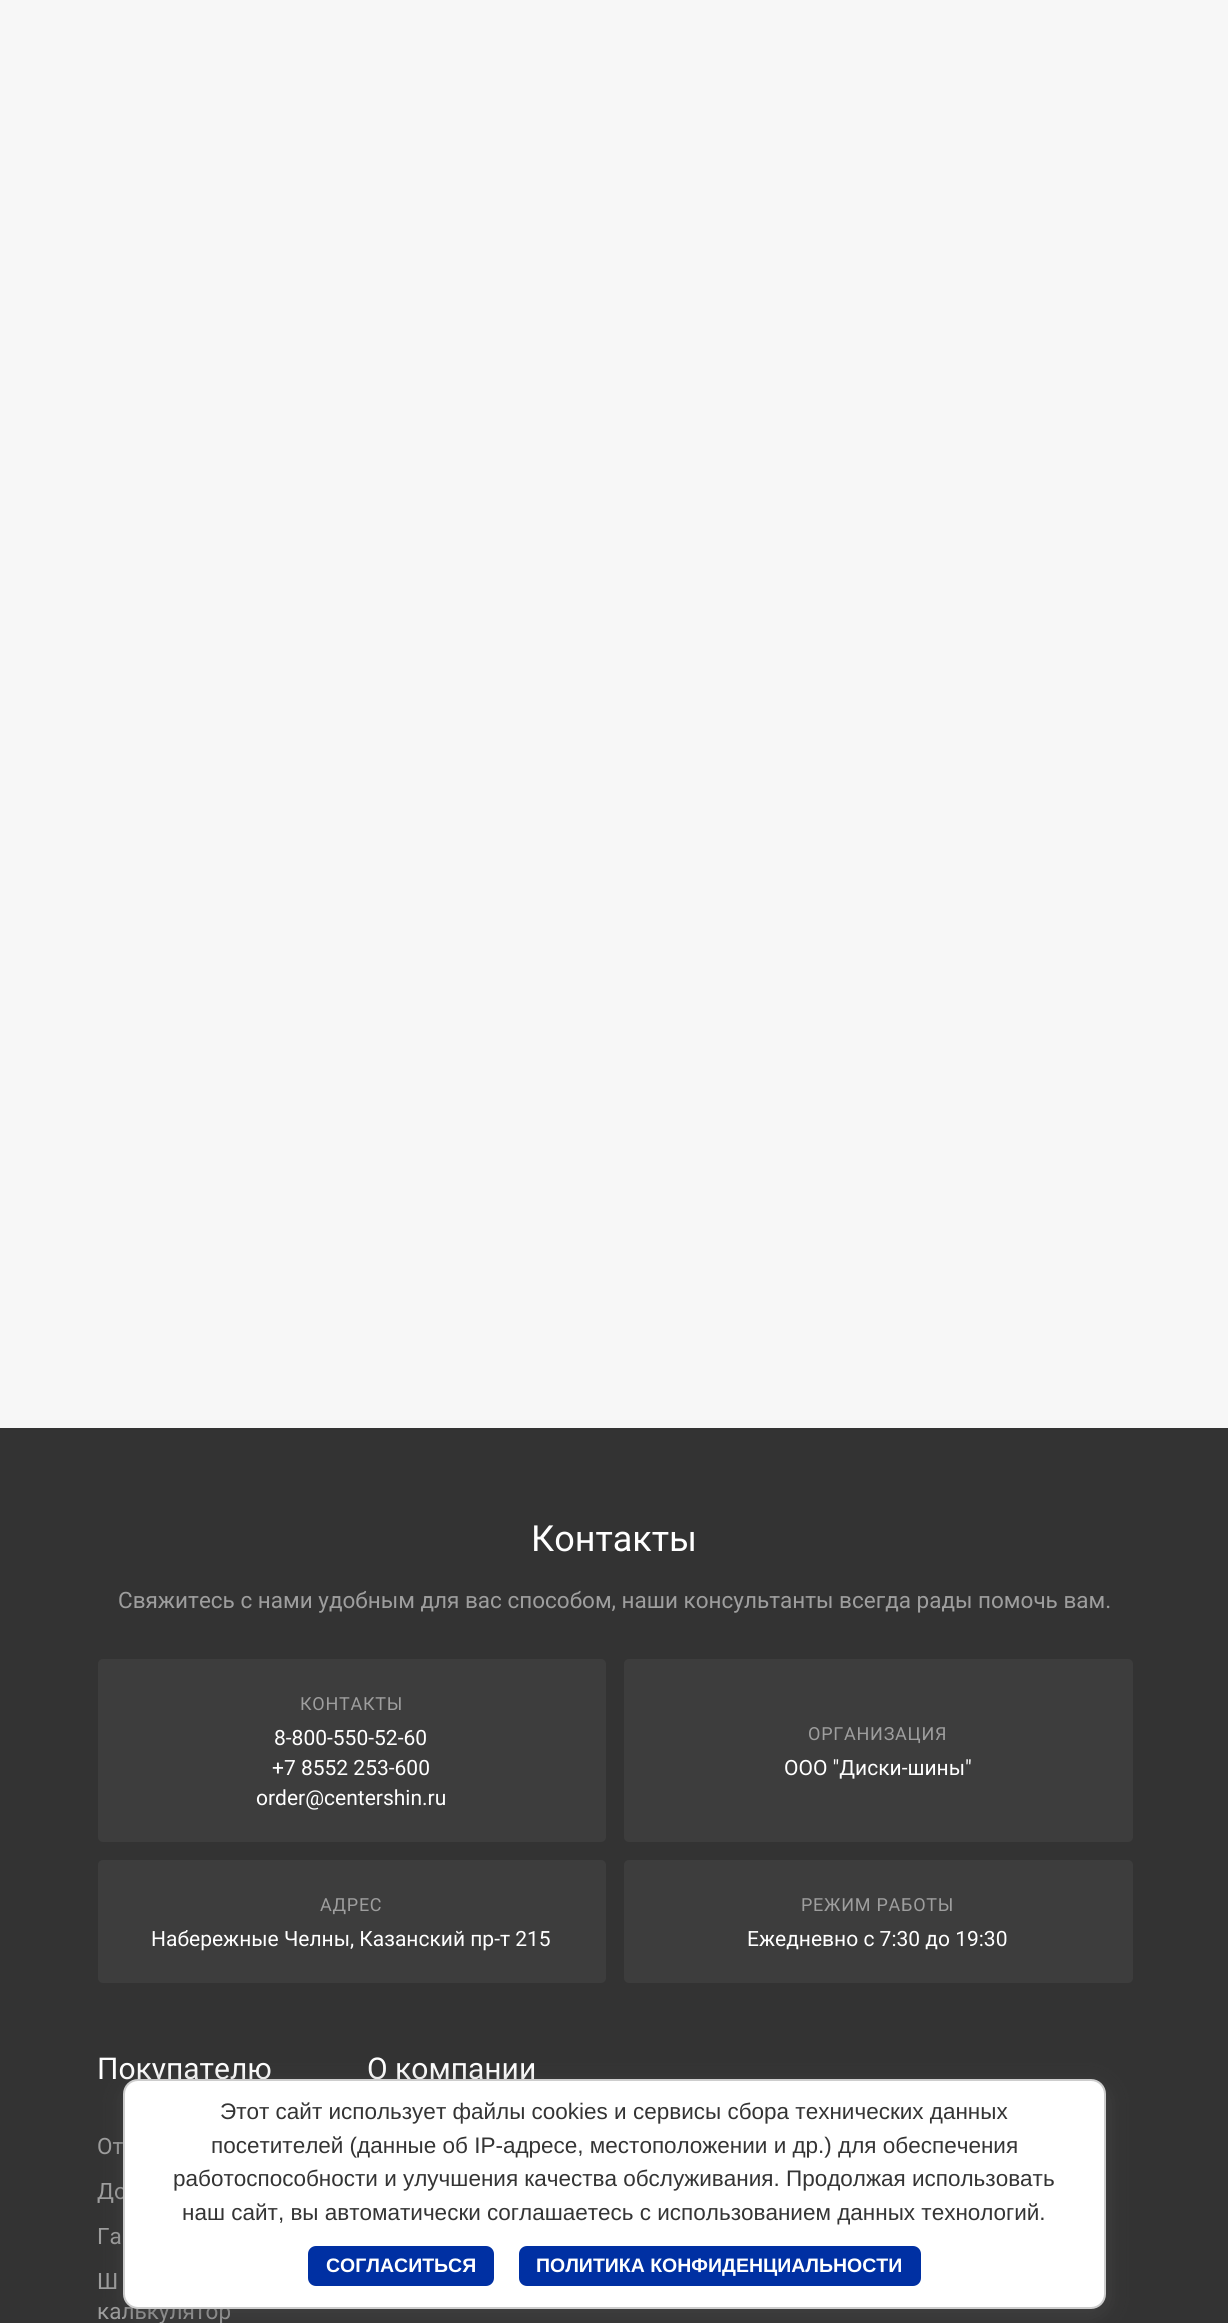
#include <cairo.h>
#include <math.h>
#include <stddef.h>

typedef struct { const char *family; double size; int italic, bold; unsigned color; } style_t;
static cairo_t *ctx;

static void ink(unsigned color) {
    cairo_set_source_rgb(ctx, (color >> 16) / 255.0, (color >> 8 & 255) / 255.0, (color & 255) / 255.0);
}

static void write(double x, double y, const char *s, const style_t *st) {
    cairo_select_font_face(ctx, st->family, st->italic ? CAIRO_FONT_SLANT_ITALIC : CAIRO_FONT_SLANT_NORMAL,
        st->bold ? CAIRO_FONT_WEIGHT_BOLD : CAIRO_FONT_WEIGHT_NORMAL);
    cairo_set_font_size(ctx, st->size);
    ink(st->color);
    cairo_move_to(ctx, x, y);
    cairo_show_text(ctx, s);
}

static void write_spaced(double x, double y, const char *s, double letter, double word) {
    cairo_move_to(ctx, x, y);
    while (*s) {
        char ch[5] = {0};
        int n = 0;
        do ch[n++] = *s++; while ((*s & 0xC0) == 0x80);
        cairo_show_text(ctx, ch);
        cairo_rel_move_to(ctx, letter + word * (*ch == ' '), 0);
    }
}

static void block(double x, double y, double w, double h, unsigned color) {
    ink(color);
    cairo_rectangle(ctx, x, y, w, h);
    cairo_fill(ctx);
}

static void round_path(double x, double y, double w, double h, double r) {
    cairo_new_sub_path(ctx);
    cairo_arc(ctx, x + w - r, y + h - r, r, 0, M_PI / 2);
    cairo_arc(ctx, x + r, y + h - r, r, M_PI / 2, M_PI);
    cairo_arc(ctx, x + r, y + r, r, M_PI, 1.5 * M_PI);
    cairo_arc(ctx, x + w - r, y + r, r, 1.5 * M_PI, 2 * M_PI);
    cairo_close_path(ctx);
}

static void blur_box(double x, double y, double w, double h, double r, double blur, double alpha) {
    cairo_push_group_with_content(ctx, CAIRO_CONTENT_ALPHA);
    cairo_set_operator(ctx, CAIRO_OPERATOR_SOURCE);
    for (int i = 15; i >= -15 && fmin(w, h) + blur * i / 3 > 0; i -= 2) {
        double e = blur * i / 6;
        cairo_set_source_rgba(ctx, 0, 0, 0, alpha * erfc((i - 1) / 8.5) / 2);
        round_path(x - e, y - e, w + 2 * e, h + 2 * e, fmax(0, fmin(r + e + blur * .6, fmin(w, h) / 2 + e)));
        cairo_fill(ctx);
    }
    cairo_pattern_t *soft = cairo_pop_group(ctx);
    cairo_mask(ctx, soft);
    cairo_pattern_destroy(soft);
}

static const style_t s1 = {"Roboto", 36, 0, 0, 0xffffff};
static const style_t s2 = {"Roboto", 22.5, 0, 0, 0x9e9e9e};
static const style_t s3 = {"Roboto", 21, 0, 0, 0xffffff};
static const style_t s4 = {"Roboto", 30, 0, 0, 0xffffff};
static const style_t s5 = {"Liberation Sans", 22.5, 0, 0, 0x343434};
static const style_t s6 = {"Liberation Sans", 19.5, 0, 1, 0xffffff};

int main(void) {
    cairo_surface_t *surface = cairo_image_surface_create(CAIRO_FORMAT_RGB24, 1228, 2323);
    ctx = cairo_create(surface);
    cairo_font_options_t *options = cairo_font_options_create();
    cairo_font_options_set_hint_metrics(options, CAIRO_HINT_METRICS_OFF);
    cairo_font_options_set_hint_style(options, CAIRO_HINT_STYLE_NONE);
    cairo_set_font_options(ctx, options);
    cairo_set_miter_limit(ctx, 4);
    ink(0xf7f7f7);
    cairo_paint(ctx);
    block(0, 1428, 1228, 895, 0x333333);
    write(531, 1551, "Контакты", &s1);
    write(118, 1608, "Свяжитесь с нами удобным для вас способом, наши консультанты всегда рады помочь вам.", &s2);
    ink(0x3d3d3d);
    round_path(98, 1659, 508, 183, 5);
    cairo_fill(ctx);
    cairo_set_font_size(ctx, 18);
    ink(0x9e9e9e);
    write_spaced(300, 1710, "КОНТАКТЫ", 0.75, 0);
    write(274, 1745, "8-800-550-52-60", &s3);
    write(272, 1775, "+7 8552 253-600", &s3);
    write(256, 1805, "order@centershin.ru", &s3);
    ink(0x3d3d3d);
    round_path(624, 1659, 509, 183, 5);
    cairo_fill(ctx);
    cairo_set_font_size(ctx, 18);
    ink(0x9e9e9e);
    write_spaced(808, 1740, "ОРГАНИЗАЦИЯ", 0.75, 0);
    write(784, 1775, "ООО \"Диски-шины\"", &s3);
    ink(0x3d3d3d);
    round_path(98, 1860, 508, 123, 5);
    cairo_fill(ctx);
    cairo_set_font_size(ctx, 18);
    ink(0x9e9e9e);
    write_spaced(320, 1911, "АДРЕС", 0.75, 0);
    write(151, 1946, "Набережные Челны, Казанский пр-т 215", &s3);
    ink(0x3d3d3d);
    round_path(624, 1860, 509, 123, 5);
    cairo_fill(ctx);
    cairo_set_font_size(ctx, 18);
    ink(0x9e9e9e);
    write_spaced(801, 1911, "РЕЖИМ РАБОТЫ", 0.75, 0);
    write(747, 1946, "Ежедневно с 7:30 до 19:30", &s3);
    write(97, 2079, "Покупателю", &s4);
    write(97, 2154, "От", &s2);
    write(97, 2199, "До", &s2);
    write(97, 2244, "Га", &s2);
    write(97, 2289, "Ш", &s2);
    write(97, 2319, "калькулятор", &s2);
    write(367, 2079, "О компании", &s4);
    ink(0x505050);
    blur_box(125, 2085, 982, 230, 15, 10.5, 0.5);
    ink(0xffffff);
    round_path(124, 2080, 981, 228, 14);
    cairo_fill_preserve(ctx);
    ink(0xcdcdcd);
    cairo_stroke(ctx);
    write(220, 2119, "Этот сайт использует файлы cookies и сервисы сбора технических данных", &s5);
    write(211, 2153, "посетителей (данные об IP-адресе, местоположении и др.) для обеспечения", &s5);
    write(173, 2186, "работоспособности и улучшения качества обслуживания. Продолжая использовать", &s5);
    write(182, 2220, "наш сайт, вы автоматически соглашаетесь с использованием данных технологий.", &s5);
    ink(0x0030a3);
    round_path(308, 2246, 186, 40, 8);
    cairo_fill(ctx);
    write(326, 2272, "СОГЛАСИТЬСЯ", &s6);
    ink(0x0030a3);
    round_path(519, 2246, 402, 40, 8);
    cairo_fill(ctx);
    write(536, 2272, "ПОЛИТИКА КОНФИДЕНЦИАЛЬНОСТИ", &s6);
    cairo_surface_write_to_png(surface, "screenshot.png");
    cairo_font_options_destroy(options);
    cairo_destroy(ctx);
    cairo_surface_destroy(surface);
    return 0;
}
